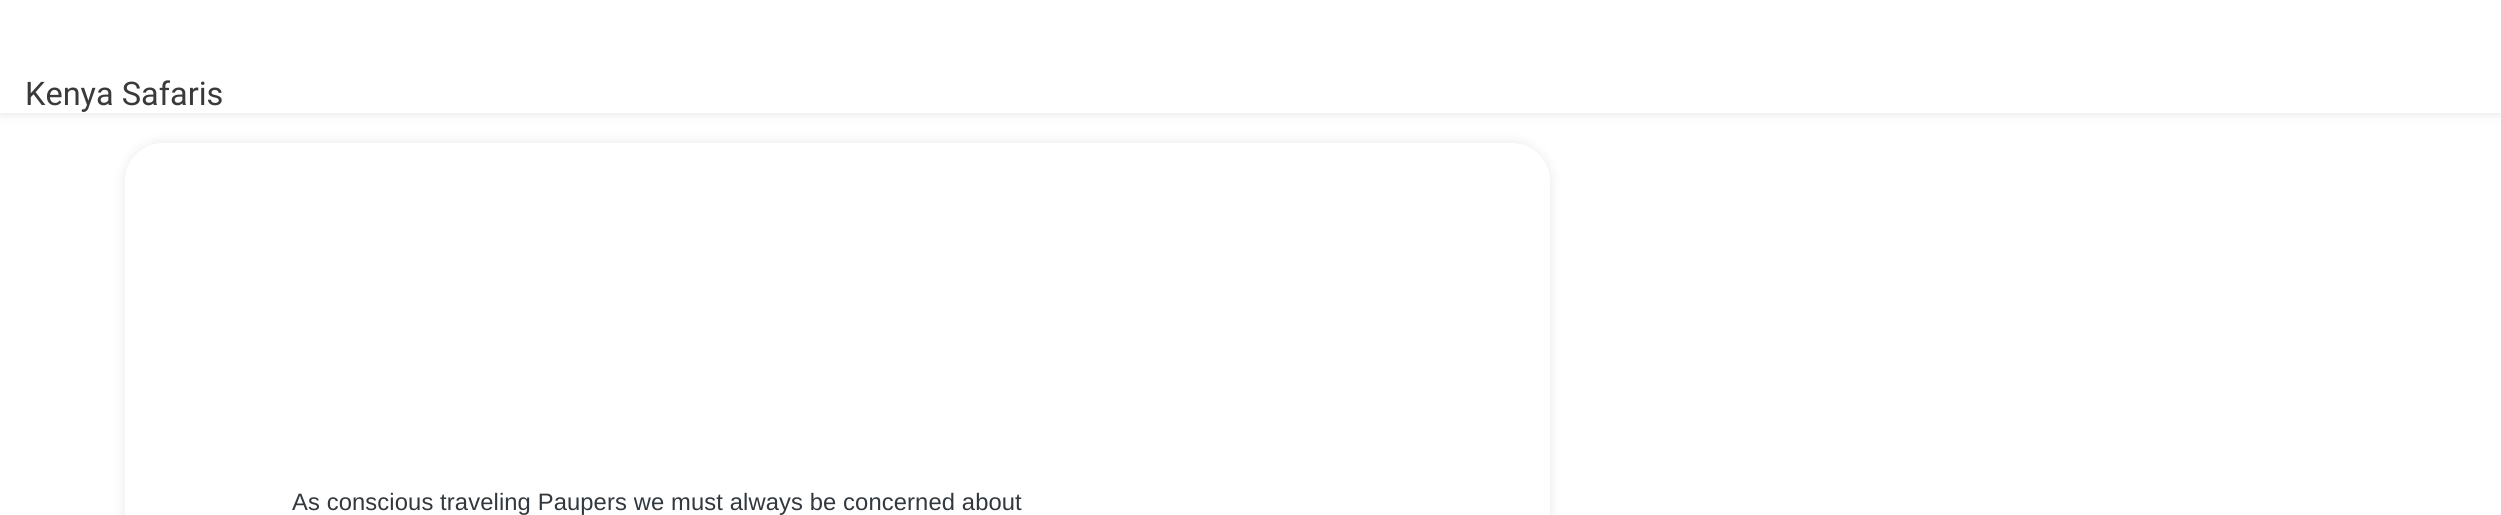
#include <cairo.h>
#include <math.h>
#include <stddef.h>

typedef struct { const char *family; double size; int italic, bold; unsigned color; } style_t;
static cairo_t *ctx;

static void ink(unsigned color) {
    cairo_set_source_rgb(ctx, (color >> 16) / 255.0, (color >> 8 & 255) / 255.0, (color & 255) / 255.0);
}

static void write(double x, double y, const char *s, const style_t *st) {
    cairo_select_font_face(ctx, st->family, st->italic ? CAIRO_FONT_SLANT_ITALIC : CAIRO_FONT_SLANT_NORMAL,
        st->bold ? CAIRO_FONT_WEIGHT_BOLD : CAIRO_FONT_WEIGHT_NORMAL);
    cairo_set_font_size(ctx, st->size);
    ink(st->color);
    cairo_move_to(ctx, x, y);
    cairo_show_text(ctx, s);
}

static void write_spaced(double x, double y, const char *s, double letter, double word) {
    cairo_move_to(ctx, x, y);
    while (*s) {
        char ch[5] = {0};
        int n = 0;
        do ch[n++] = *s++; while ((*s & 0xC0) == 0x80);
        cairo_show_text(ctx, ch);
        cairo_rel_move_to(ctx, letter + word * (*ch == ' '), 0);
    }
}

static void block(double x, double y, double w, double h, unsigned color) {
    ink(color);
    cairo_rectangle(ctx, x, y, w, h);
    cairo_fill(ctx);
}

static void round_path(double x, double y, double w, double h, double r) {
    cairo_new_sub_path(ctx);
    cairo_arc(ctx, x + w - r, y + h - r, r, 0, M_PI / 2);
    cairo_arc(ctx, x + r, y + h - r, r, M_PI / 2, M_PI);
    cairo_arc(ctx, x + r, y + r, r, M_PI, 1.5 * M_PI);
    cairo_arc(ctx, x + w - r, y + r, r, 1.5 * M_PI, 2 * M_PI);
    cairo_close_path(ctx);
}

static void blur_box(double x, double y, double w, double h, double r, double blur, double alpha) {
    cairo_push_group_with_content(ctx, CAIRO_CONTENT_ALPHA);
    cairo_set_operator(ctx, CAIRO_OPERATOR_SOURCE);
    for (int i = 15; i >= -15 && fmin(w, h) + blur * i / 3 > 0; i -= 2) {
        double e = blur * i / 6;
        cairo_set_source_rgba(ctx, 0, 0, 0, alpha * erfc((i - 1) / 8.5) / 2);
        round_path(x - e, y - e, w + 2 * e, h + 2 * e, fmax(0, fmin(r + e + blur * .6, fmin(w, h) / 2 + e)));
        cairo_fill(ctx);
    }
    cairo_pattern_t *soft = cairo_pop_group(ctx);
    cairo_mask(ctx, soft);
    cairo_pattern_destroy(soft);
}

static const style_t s1 = {"Roboto", 32.5, 0, 0, 0x3a3a3a};

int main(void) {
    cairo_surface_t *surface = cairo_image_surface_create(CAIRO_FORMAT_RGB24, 2501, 515);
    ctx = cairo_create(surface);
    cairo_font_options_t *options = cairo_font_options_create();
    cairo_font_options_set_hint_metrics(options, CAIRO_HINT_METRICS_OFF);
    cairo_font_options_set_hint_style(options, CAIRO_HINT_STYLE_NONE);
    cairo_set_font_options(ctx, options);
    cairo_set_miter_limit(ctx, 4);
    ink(0xffffff);
    cairo_paint(ctx);
    ink(0x000000);
    blur_box(0, 0, 2501, 113, 0, 6, 0.12);
    block(0, 0, 2501, 113, 0xffffff);
    write(25, 105, "Kenya Safaris", &s1);
    ink(0x000000);
    blur_box(125, 143, 1425, 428, 38, 6, 0.1);
    ink(0xffffff);
    round_path(125, 143, 1425, 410, 38);
    cairo_fill(ctx);
    cairo_select_font_face(ctx, "Liberation Sans", CAIRO_FONT_SLANT_NORMAL, CAIRO_FONT_WEIGHT_NORMAL);
    cairo_set_font_size(ctx, 23.75);
    ink(0x31383e);
    write_spaced(292, 510, "As conscious traveling Paupers we must always be concerned about", 0.12, 0);
    cairo_surface_write_to_png(surface, "screenshot.png");
    cairo_font_options_destroy(options);
    cairo_destroy(ctx);
    cairo_surface_destroy(surface);
    return 0;
}
